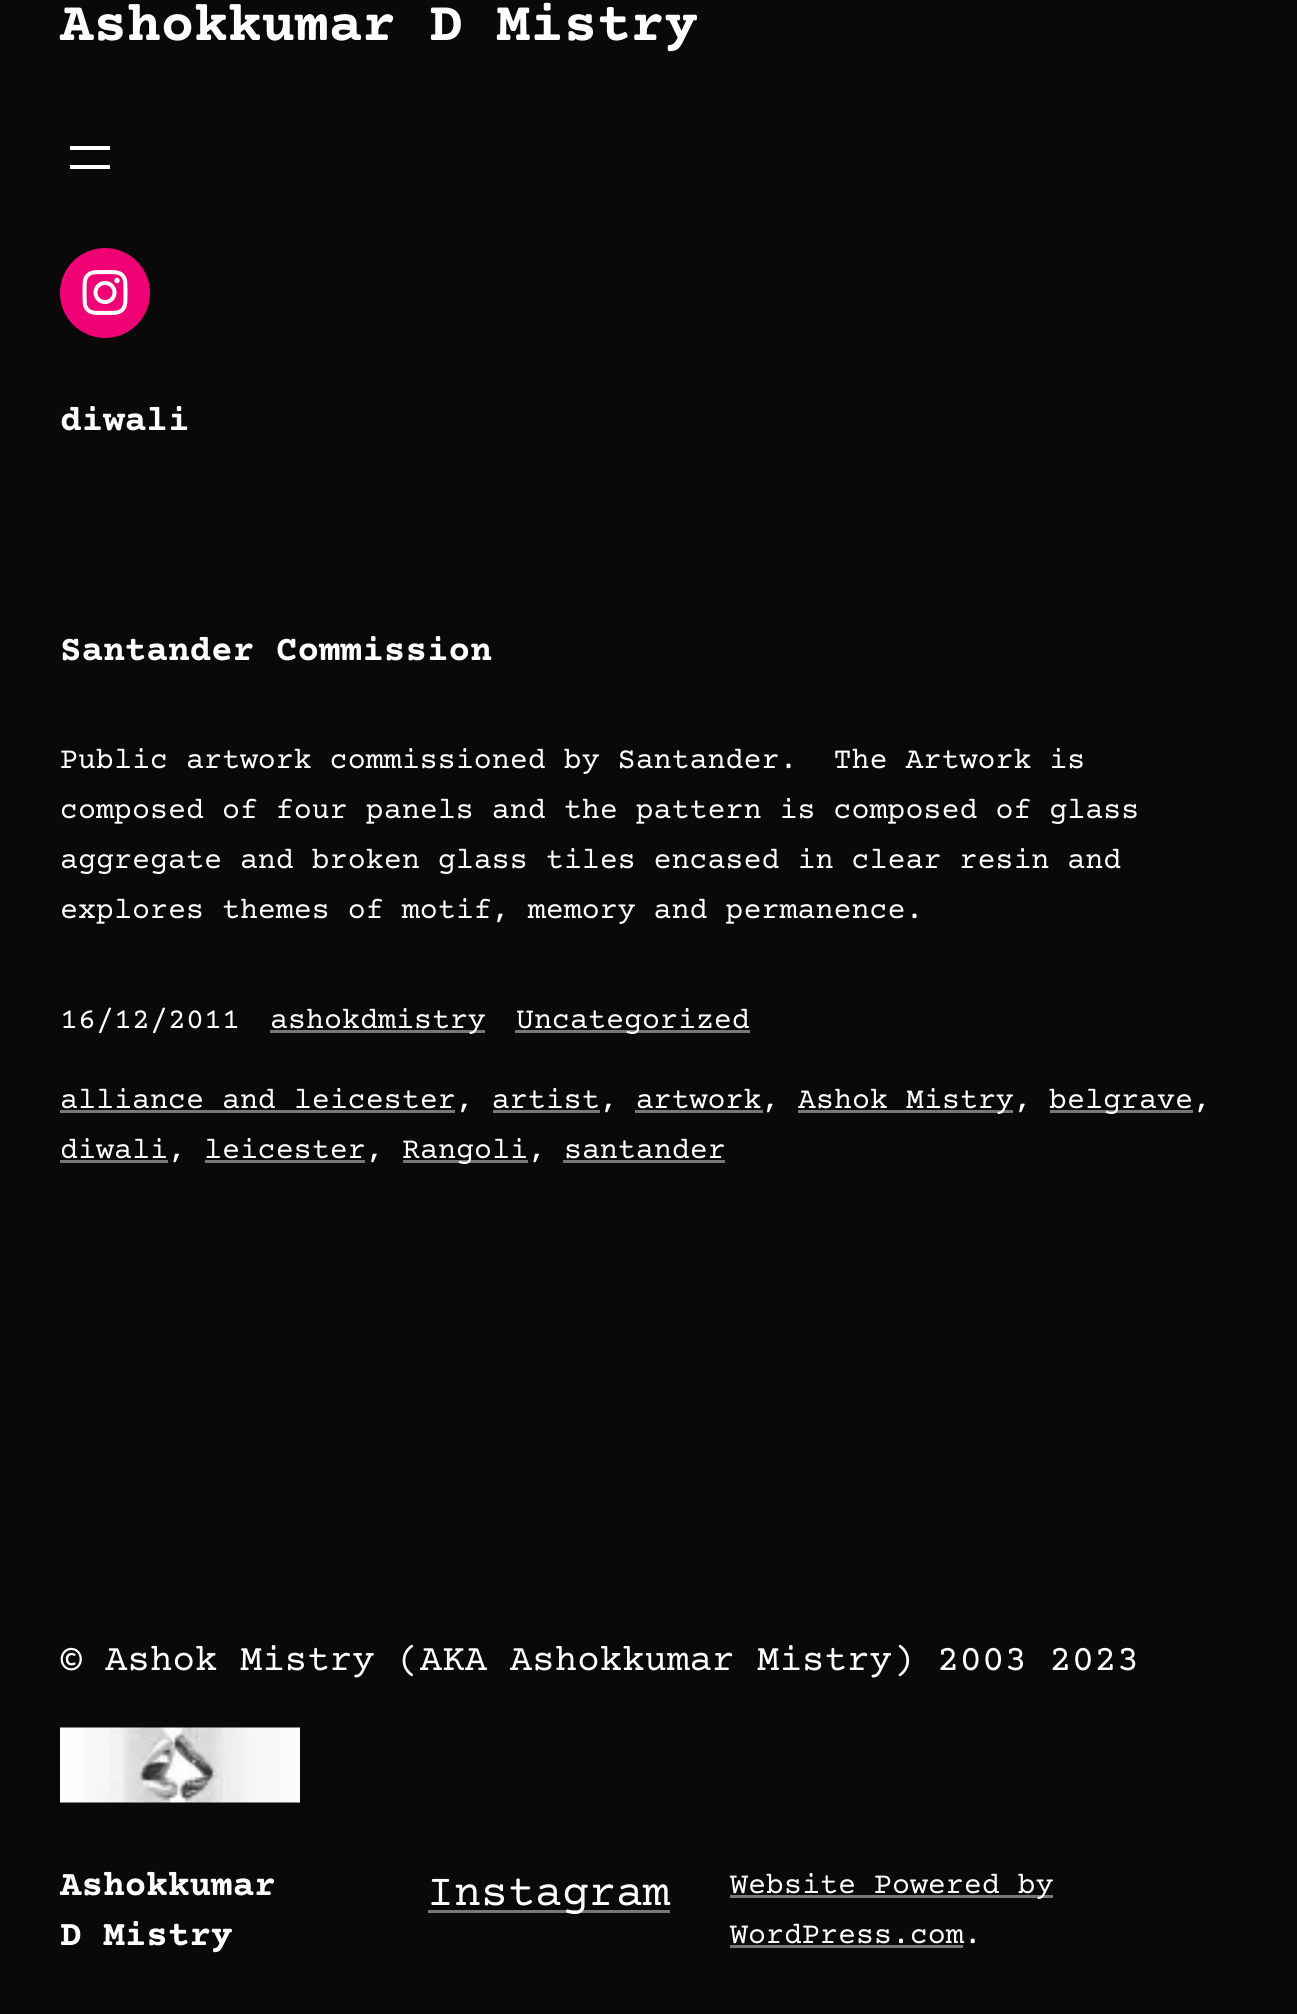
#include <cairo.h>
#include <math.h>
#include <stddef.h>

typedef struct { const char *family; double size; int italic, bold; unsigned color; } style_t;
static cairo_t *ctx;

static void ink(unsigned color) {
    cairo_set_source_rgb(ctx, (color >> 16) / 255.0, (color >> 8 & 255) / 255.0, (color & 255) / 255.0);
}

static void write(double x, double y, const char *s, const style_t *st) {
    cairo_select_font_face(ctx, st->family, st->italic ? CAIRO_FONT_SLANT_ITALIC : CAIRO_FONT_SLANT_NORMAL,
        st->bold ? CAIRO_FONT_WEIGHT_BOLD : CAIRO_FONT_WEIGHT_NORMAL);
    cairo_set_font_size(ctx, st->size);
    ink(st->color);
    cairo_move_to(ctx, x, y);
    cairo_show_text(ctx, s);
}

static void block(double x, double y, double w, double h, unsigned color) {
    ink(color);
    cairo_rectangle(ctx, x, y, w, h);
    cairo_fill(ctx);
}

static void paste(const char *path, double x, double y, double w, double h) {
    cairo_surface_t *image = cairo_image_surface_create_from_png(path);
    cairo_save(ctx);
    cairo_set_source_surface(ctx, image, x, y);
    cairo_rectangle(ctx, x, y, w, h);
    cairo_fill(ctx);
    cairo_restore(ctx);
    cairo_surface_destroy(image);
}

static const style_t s1 = {"Courier Prime", 56, 0, 1, 0xffffff};
static const style_t s2 = {"Courier Prime", 36, 0, 1, 0xffffff};
static const style_t s3 = {"Courier Prime", 30, 0, 0, 0xffffff};
static const style_t s4 = {"Courier Prime", 37.5, 0, 0, 0xffffff};
static const style_t s5 = {"Courier Prime", 45, 0, 0, 0xffffff};

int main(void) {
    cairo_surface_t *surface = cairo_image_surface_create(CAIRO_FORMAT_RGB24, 1297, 2014);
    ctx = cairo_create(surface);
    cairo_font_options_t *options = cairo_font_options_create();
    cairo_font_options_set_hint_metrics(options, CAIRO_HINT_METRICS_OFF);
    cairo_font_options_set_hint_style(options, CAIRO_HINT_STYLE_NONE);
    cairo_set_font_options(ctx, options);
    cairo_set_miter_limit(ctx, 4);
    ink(0x090909);
    cairo_paint(ctx);
    write(60, 40, "Ashokkumar D Mistry", &s1);
    block(70, 146, 40, 4, 0xffffff);
    block(70, 165, 40, 4, 0xffffff);
    ink(0xf00075);
    cairo_new_path(ctx);
    cairo_arc(ctx, 105, 293, 45, 0, 2 * M_PI);
    cairo_fill(ctx);
    paste("pic1.png", 82, 270, 46, 45);
    write(60, 430, "diwali", &s2);
    write(60, 660, "Santander Commission", &s2);
    write(60, 768, "Public artwork commissioned by Santander.  The Artwork is", &s3);
    write(60, 818, "composed of four panels and the pattern is composed of glass", &s3);
    write(60, 868, "aggregate and broken glass tiles encased in clear resin and", &s3);
    write(60, 918, "explores themes of motif, memory and permanence.", &s3);
    write(60, 1028, "16/12/2011", &s3);
    block(270, 1030, 215, 3, 0x787878);
    write(270, 1028, "ashokdmistry", &s3);
    block(515, 1030, 235, 3, 0x787878);
    write(516, 1028, "Uncategorized", &s3);
    block(60, 1110, 395, 3, 0x787878);
    write(60, 1108, "alliance and leicester, artist, artwork,", &s3);
    block(798, 1110, 215, 3, 0x787878);
    write(798, 1108, "Ashok Mistry,", &s3);
    block(1050, 1110, 143, 3, 0x787878);
    write(1049, 1108, "belgrave,", &s3);
    block(493, 1110, 107, 3, 0x787878);
    block(635, 1110, 128, 3, 0x787878);
    block(60, 1160, 108, 3, 0x787878);
    write(60, 1158, "diwali, leicester,", &s3);
    block(403, 1160, 125, 3, 0x787878);
    write(402, 1158, "Rangoli, santander", &s3);
    block(205, 1160, 160, 3, 0x787878);
    block(563, 1160, 162, 3, 0x787878);
    write(60, 1670, "© Ashok Mistry (AKA Ashokkumar Mistry) 2003 2023", &s4);
    paste("pic2.png", 60, 1727, 240, 76);
    write(60, 1895, "Ashokkumar", &s2);
    write(60, 1945, "D Mistry", &s2);
    block(428, 1910, 242, 3, 0x787878);
    write(427, 1905, "Instagram", &s5);
    block(730, 1895, 323, 3, 0x787878);
    write(730, 1893, "Website Powered by", &s3);
    write(730, 1943, "WordPress.com.", &s3);
    block(730, 1945, 233, 3, 0x787878);
    cairo_surface_write_to_png(surface, "screenshot.png");
    cairo_font_options_destroy(options);
    cairo_destroy(ctx);
    cairo_surface_destroy(surface);
    return 0;
}
